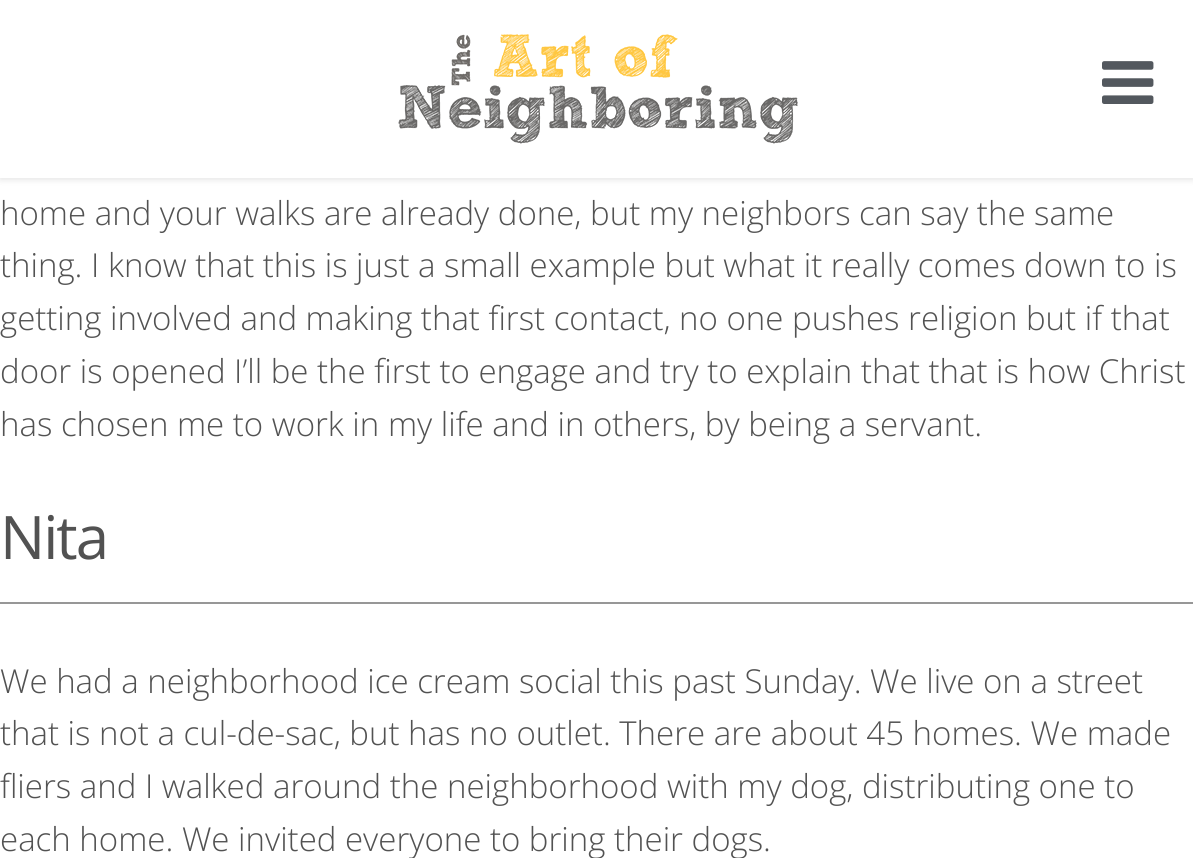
#include <cairo.h>
#include <math.h>
#include <stddef.h>

typedef struct { const char *family; double size; int italic, bold; unsigned color; } style_t;
static cairo_t *ctx;

static void ink(unsigned color) {
    cairo_set_source_rgb(ctx, (color >> 16) / 255.0, (color >> 8 & 255) / 255.0, (color & 255) / 255.0);
}

static void write(double x, double y, const char *s, const style_t *st) {
    cairo_select_font_face(ctx, st->family, st->italic ? CAIRO_FONT_SLANT_ITALIC : CAIRO_FONT_SLANT_NORMAL,
        st->bold ? CAIRO_FONT_WEIGHT_BOLD : CAIRO_FONT_WEIGHT_NORMAL);
    cairo_set_font_size(ctx, st->size);
    ink(st->color);
    cairo_move_to(ctx, x, y);
    cairo_show_text(ctx, s);
}

static void write_spaced(double x, double y, const char *s, double letter, double word) {
    cairo_move_to(ctx, x, y);
    while (*s) {
        char ch[5] = {0};
        int n = 0;
        do ch[n++] = *s++; while ((*s & 0xC0) == 0x80);
        cairo_show_text(ctx, ch);
        cairo_rel_move_to(ctx, letter + word * (*ch == ' '), 0);
    }
}

static void block(double x, double y, double w, double h, unsigned color) {
    ink(color);
    cairo_rectangle(ctx, x, y, w, h);
    cairo_fill(ctx);
}

static void round_path(double x, double y, double w, double h, double r) {
    cairo_new_sub_path(ctx);
    cairo_arc(ctx, x + w - r, y + h - r, r, 0, M_PI / 2);
    cairo_arc(ctx, x + r, y + h - r, r, M_PI / 2, M_PI);
    cairo_arc(ctx, x + r, y + r, r, M_PI, 1.5 * M_PI);
    cairo_arc(ctx, x + w - r, y + r, r, 1.5 * M_PI, 2 * M_PI);
    cairo_close_path(ctx);
}

static void blur_box(double x, double y, double w, double h, double r, double blur, double alpha) {
    cairo_push_group_with_content(ctx, CAIRO_CONTENT_ALPHA);
    cairo_set_operator(ctx, CAIRO_OPERATOR_SOURCE);
    for (int i = 15; i >= -15 && fmin(w, h) + blur * i / 3 > 0; i -= 2) {
        double e = blur * i / 6;
        cairo_set_source_rgba(ctx, 0, 0, 0, alpha * erfc((i - 1) / 8.5) / 2);
        round_path(x - e, y - e, w + 2 * e, h + 2 * e, fmax(0, fmin(r + e + blur * .6, fmin(w, h) / 2 + e)));
        cairo_fill(ctx);
    }
    cairo_pattern_t *soft = cairo_pop_group(ctx);
    cairo_mask(ctx, soft);
    cairo_pattern_destroy(soft);
}

static void paste(const char *path, double x, double y, double w, double h) {
    cairo_surface_t *image = cairo_image_surface_create_from_png(path);
    cairo_save(ctx);
    cairo_set_source_surface(ctx, image, x, y);
    cairo_rectangle(ctx, x, y, w, h);
    cairo_fill(ctx);
    cairo_restore(ctx);
    cairo_surface_destroy(image);
}

static const style_t s1 = {"Open Sans Light", 33, 0, 0, 0x525252};

int main(void) {
    cairo_surface_t *surface = cairo_image_surface_create(CAIRO_FORMAT_RGB24, 1193, 858);
    ctx = cairo_create(surface);
    cairo_font_options_t *options = cairo_font_options_create();
    cairo_font_options_set_hint_metrics(options, CAIRO_HINT_METRICS_OFF);
    cairo_font_options_set_hint_style(options, CAIRO_HINT_STYLE_NONE);
    cairo_set_font_options(ctx, options);
    cairo_set_miter_limit(ctx, 4);
    ink(0xffffff);
    cairo_paint(ctx);
    ink(0x000000);
    blur_box(0, 2, 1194, 178, 0, 3, 0.1);
    block(0, 0, 1193, 178, 0xffffff);
    paste("pic1.png", 398, 34, 400, 110);
    paste("pic2.png", 1102, 61, 52, 43);
    write(0, 225, "home and your walks are already done, but my neighbors can say the same", &s1);
    write(0, 277, "thing. I know that this is just a small example but what it really comes down to is", &s1);
    write(0, 330, "getting involved and making that first contact, no one pushes religion but if that", &s1);
    write(0, 383, "door is opened I’ll be the first to engage and try to explain that that is how Christ", &s1);
    write(0, 436, "has chosen me to work in my life and in others, by being a servant.", &s1);
    block(0, 602, 1193, 2, 0x979797);
    cairo_select_font_face(ctx, "Open Sans", CAIRO_FONT_SLANT_NORMAL, CAIRO_FONT_WEIGHT_NORMAL);
    cairo_set_font_size(ctx, 60);
    ink(0x525252);
    write_spaced(0, 559, "Nita", -2, 0);
    write(0, 693, "We had a neighborhood ice cream social this past Sunday. We live on a street", &s1);
    write(0, 745, "that is not a cul-de-sac, but has no outlet. There are about 45 homes. We made", &s1);
    write(0, 798, "fliers and I walked around the neighborhood with my dog, distributing one to", &s1);
    write(0, 851, "each home. We invited everyone to bring their dogs.", &s1);
    cairo_surface_write_to_png(surface, "screenshot.png");
    cairo_font_options_destroy(options);
    cairo_destroy(ctx);
    cairo_surface_destroy(surface);
    return 0;
}
